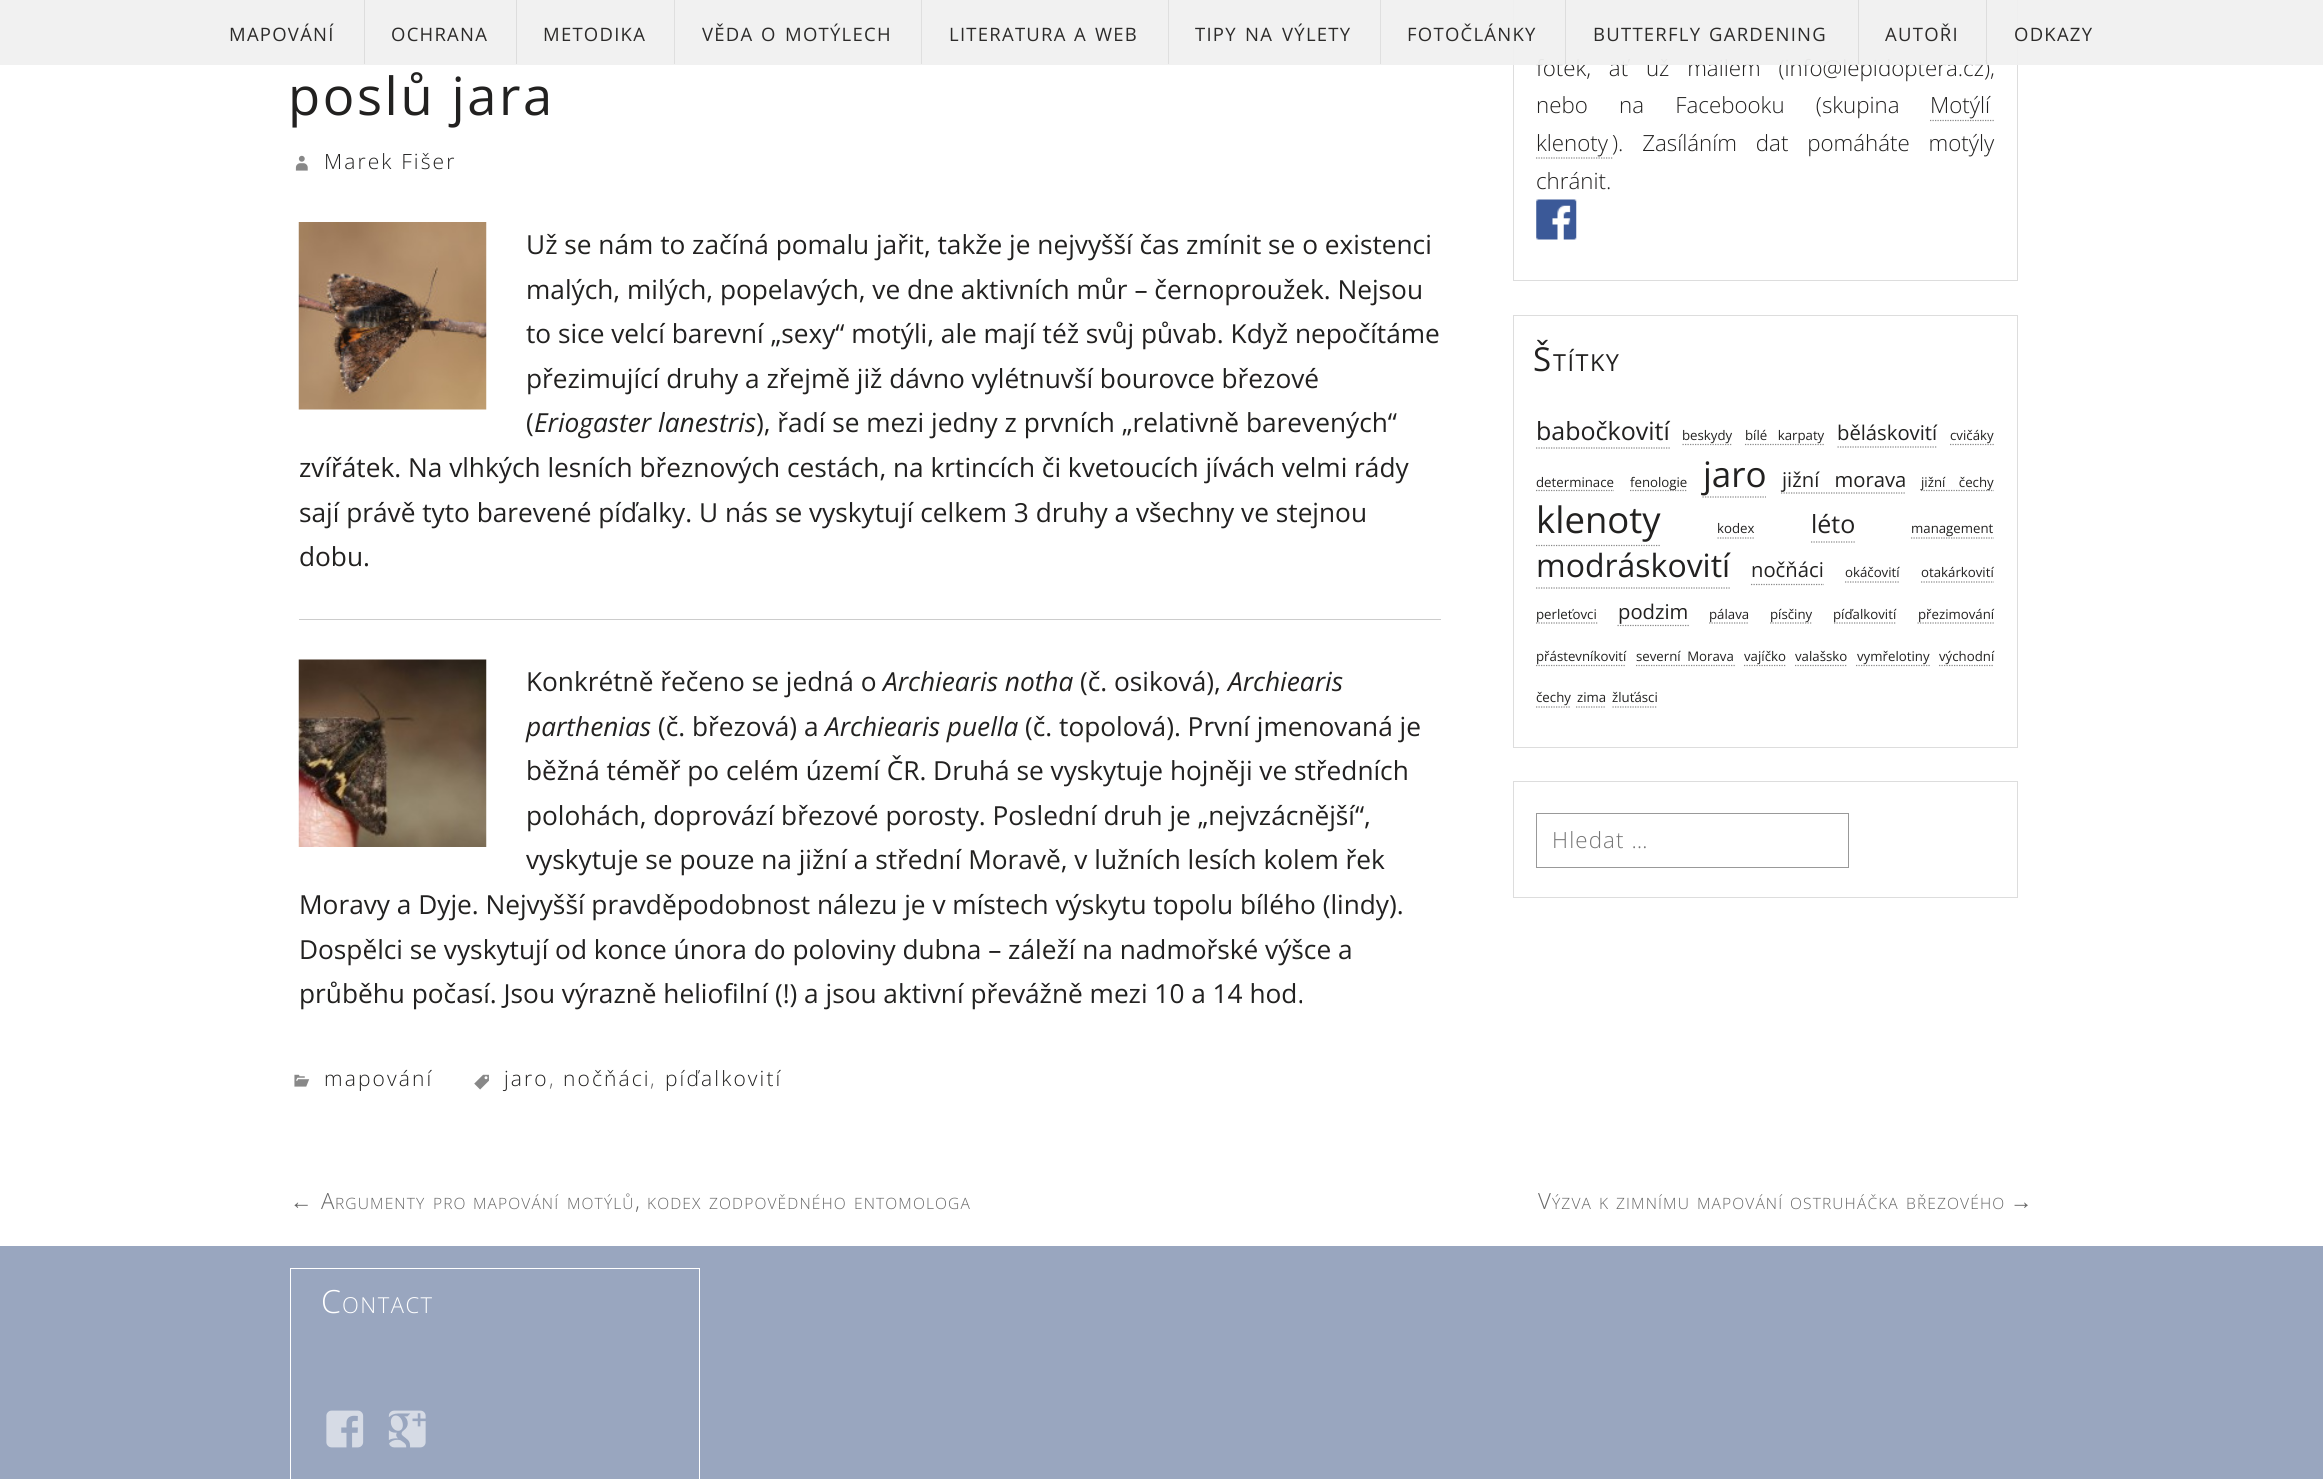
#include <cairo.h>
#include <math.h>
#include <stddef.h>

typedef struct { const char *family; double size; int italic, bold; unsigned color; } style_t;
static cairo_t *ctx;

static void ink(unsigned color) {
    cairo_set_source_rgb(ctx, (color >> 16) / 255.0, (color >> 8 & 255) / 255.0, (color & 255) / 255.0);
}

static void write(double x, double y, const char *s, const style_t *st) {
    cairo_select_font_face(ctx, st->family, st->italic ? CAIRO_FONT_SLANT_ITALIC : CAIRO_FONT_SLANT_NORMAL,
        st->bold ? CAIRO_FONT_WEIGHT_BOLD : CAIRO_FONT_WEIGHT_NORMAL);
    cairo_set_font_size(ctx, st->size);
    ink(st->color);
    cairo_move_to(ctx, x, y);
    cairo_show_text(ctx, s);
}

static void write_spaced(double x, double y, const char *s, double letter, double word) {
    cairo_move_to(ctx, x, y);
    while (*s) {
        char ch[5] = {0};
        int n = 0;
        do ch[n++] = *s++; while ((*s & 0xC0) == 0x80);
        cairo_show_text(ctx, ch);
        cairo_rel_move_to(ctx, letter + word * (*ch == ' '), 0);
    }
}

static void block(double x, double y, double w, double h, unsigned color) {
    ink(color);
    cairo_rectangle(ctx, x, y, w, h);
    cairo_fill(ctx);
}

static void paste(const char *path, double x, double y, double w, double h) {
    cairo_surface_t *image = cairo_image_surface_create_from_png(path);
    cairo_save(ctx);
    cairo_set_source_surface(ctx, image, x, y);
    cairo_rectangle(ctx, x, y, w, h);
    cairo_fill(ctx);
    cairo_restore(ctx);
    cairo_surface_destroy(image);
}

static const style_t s1 = {"Open Sans", 26.25, 0, 0, 0x222120};
static const style_t s2 = {"Open Sans", 26.25, 1, 0, 0x222120};
static const style_t s3 = {"Open Sans Light", 22.3, 0, 0, 0x222120};
static const style_t s4 = {"Open Sans", 25, 0, 0, 0x222120};
static const style_t s5 = {"Open Sans", 13.25, 0, 0, 0x222120};
static const style_t s6 = {"Open Sans", 20.25, 0, 0, 0x222120};
static const style_t s7 = {"Open Sans", 35, 0, 0, 0x222120};
static const style_t s8 = {"Open Sans", 36.5, 0, 0, 0x222120};
static const style_t s9 = {"Open Sans", 32, 0, 0, 0x222120};

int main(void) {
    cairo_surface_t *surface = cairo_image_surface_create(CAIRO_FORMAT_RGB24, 2323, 1479);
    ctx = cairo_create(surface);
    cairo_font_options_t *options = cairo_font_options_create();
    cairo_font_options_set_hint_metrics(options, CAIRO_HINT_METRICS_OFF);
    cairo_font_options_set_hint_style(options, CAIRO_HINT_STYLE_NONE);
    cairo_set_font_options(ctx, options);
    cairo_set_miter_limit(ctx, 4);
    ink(0xffffff);
    cairo_paint(ctx);
    cairo_rectangle(ctx, 1513.5, -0.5, 504, 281);
    ink(0xdddddd);
    cairo_set_line_width(ctx, 1);
    cairo_stroke(ctx);
    cairo_select_font_face(ctx, "Open Sans Light", CAIRO_FONT_SLANT_NORMAL, CAIRO_FONT_WEIGHT_NORMAL);
    cairo_set_font_size(ctx, 22.3);
    ink(0x222120);
    write_spaced(1536, 76, "fotek, ať už mailem (info@lepidoptera.cz),", 0, 12);
    cairo_set_source_rgba(ctx, 0.945, 0.945, 0.945, 0.95);
    cairo_rectangle(ctx, 0, 0, 2323, 65);
    cairo_fill(ctx);
    cairo_set_source_rgba(ctx, 0.867, 0.867, 0.867, 0.95);
    cairo_rectangle(ctx, 364, 0, 1, 64);
    cairo_fill(ctx);
    cairo_select_font_face(ctx, "Open Sans", CAIRO_FONT_SLANT_NORMAL, CAIRO_FONT_WEIGHT_NORMAL);
    cairo_set_font_size(ctx, 18.5);
    ink(0x2c2b2a);
    write_spaced(229, 41, "MAPOVÁNÍ", 1.25, 0);
    cairo_set_source_rgba(ctx, 0.867, 0.867, 0.867, 0.95);
    cairo_rectangle(ctx, 516, 0, 1, 64);
    cairo_fill(ctx);
    ink(0x2c2b2a);
    write_spaced(391, 41, "OCHRANA", 1.25, 0);
    block(674, 0, 1, 64, 0xdfdfdf);
    ink(0x2c2b2a);
    write_spaced(543, 41, "METODIKA", 1.25, 0);
    block(921, 0, 1, 64, 0xdfdfdf);
    ink(0x2c2b2a);
    write_spaced(702, 41, "VĚDA", 1.25, 0);
    write_spaced(761, 41, "O", 1.25, 0);
    write_spaced(785, 41, "MOTÝLECH", 1.25, 0);
    block(1168, 0, 1, 64, 0xdfdfdf);
    ink(0x2c2b2a);
    write_spaced(949, 41, "LITERATURA", 1.25, 0);
    write_spaced(1074, 41, "A", 1.25, 0);
    write_spaced(1095, 41, "WEB", 1.25, 0);
    block(1380, 0, 1, 64, 0xdfdfdf);
    ink(0x2c2b2a);
    write_spaced(1195, 41, "TIPY", 1.25, 0);
    write_spaced(1245, 41, "NA", 1.25, 0);
    write_spaced(1282, 41, "VÝLETY", 1.25, 0);
    cairo_set_source_rgba(ctx, 0.867, 0.867, 0.867, 0.95);
    cairo_rectangle(ctx, 1565, 0, 1, 64);
    cairo_fill(ctx);
    ink(0x2c2b2a);
    write_spaced(1407, 41, "FOTOČLÁNKY", 1.25, 0);
    cairo_set_source_rgba(ctx, 0.867, 0.867, 0.867, 0.95);
    cairo_rectangle(ctx, 1858, 0, 1, 64);
    cairo_fill(ctx);
    ink(0x2c2b2a);
    write_spaced(1593, 41, "BUTTERFLY", 1.25, 0);
    write_spaced(1709, 41, "GARDENING", 1.25, 0);
    cairo_set_source_rgba(ctx, 0.867, 0.867, 0.867, 0.95);
    cairo_rectangle(ctx, 1986, 0, 1, 64);
    cairo_fill(ctx);
    ink(0x2c2b2a);
    write_spaced(1885, 41, "AUTOŘI", 1.25, 0);
    write_spaced(2014, 41, "ODKAZY", 1.25, 0);
    cairo_set_font_size(ctx, 52.5);
    ink(0x222120);
    write_spaced(288, 115, "poslů jara", 2.6, 0);
    paste("pic1.png", 295, 155, 13, 16);
    cairo_select_font_face(ctx, "Open Sans Light", CAIRO_FONT_SLANT_NORMAL, CAIRO_FONT_WEIGHT_NORMAL);
    cairo_set_font_size(ctx, 21);
    write_spaced(324, 169, "Marek Fišer", 2.1, 0);
    paste("pic2.png", 298, 222, 189, 188);
    write(526, 254, "Už se nám to začíná pomalu jařit, takže je nejvyšší čas zmínit se o existenci", &s1);
    write(526, 299, "malých, milých, popelavých, ve dne aktivních můr – černoproužek. Nejsou", &s1);
    write(526, 343, "to sice velcí barevní „sexy“ motýli, ale mají též svůj půvab. Když nepočítáme", &s1);
    write(526, 388, "přezimující druhy a zřejmě již dávno vylétnuvší bourovce březové", &s1);
    write(526, 432, "(", &s1);
    write(534, 432, "Eriogaster lanestris", &s2);
    write(756, 432, "), řadí se mezi jedny z prvních „relativně barevených“", &s1);
    write(299, 477, "zvířátek. Na vlhkých lesních březnových cestách, na krtincích či kvetoucích jívách velmi rády", &s1);
    write(299, 522, "sají právě tyto barevené píďalky. U nás se vyskytují celkem 3 druhy a všechny ve stejnou", &s1);
    write(299, 566, "dobu.", &s1);
    block(299, 619, 1142, 1, 0xcccccc);
    paste("pic3.png", 298, 659, 189, 188);
    write(526, 691, "Konkrétně řečeno se jedná o", &s1);
    write(883, 691, "Archiearis notha", &s2);
    write(1080, 691, "(č. osiková),", &s1);
    write(1228, 691, "Archiearis", &s2);
    write(526, 736, "parthenias", &s2);
    write(658, 736, "(č. březová) a", &s1);
    write(825, 736, "Archiearis puella", &s2);
    write(1025, 736, "(č. topolová). První jmenovaná je", &s1);
    write(526, 780, "běžná téměř po celém území ČR. Druhá se vyskytuje hojněji ve středních", &s1);
    write(526, 825, "polohách, doprovází březové porosty. Poslední druh je „nejvzácnější“,", &s1);
    write(526, 869, "vyskytuje se pouze na jižní a střední Moravě, v lužních lesích kolem řek", &s1);
    write(299, 914, "Moravy a Dyje. Nejvyšší pravděpodobnost nálezu je v místech výskytu topolu bílého (lindy).", &s1);
    write(299, 959, "Dospělci se vyskytují od konce února do poloviny dubna – záleží na nadmořské výšce a", &s1);
    write(299, 1003, "průběhu počasí. Jsou výrazně heliofilní (!) a jsou aktivní převážně mezi 10 a 14 hod.", &s1);
    paste("pic4.png", 294, 1074, 16, 13);
    cairo_select_font_face(ctx, "Open Sans Light", CAIRO_FONT_SLANT_NORMAL, CAIRO_FONT_WEIGHT_NORMAL);
    cairo_set_font_size(ctx, 21);
    write_spaced(324, 1086, "mapování", 2.1, 0);
    paste("pic5.png", 474, 1074, 15, 16);
    write_spaced(504, 1086, "jaro", 2.1, 0);
    ink(0x666666);
    write_spaced(549, 1086, ",", 2.1, 0);
    ink(0x222120);
    write_spaced(563, 1086, "nočňáci", 2.1, 0);
    ink(0x666666);
    write_spaced(650, 1086, ",", 2.1, 0);
    ink(0x222120);
    write_spaced(665, 1086, "píďalkovití", 2.1, 0);
    cairo_set_font_size(ctx, 22.3);
    write_spaced(1536, 113, "nebo na Facebooku (skupina", 0, 25.5);
    write(1930, 113, "Motýlí", &s3);
    cairo_new_path(ctx);
    cairo_move_to(ctx, 1930, 120.5);
    cairo_line_to(ctx, 1994, 120.5);
    ink(0x888888);
    cairo_set_line_width(ctx, 1.2);
    cairo_set_dash(ctx, (double[]){1.25, 1.25}, 2, 0);
    cairo_stroke(ctx);
    write(1536, 151, "klenoty", &s3);
    cairo_new_path(ctx);
    cairo_move_to(ctx, 1536, 158);
    cairo_line_to(ctx, 1612.5, 158);
    ink(0x888888);
    cairo_stroke(ctx);
    ink(0x222120);
    write_spaced(1612, 151, "). Zasíláním dat pomáháte motýly", 0, 13);
    write(1536, 189, "chránit.", &s3);
    paste("pic6.png", 1536, 199, 41, 41);
    cairo_rectangle(ctx, 1513.5, 315.5, 504, 432);
    ink(0xdddddd);
    cairo_set_line_width(ctx, 1);
    cairo_set_dash(ctx, NULL, 0, 0);
    cairo_stroke(ctx);
    cairo_select_font_face(ctx, "Open Sans", CAIRO_FONT_SLANT_NORMAL, CAIRO_FONT_WEIGHT_NORMAL);
    cairo_set_font_size(ctx, 33);
    ink(0x222120);
    write_spaced(1533, 371, "Š", 1.5, 0);
    cairo_set_font_size(ctx, 23.5);
    write_spaced(1553, 371, "TÍTKY", 1.5, 0);
    write(1536, 440, "babočkovití", &s4);
    cairo_new_path(ctx);
    cairo_move_to(ctx, 1536, 448);
    cairo_line_to(ctx, 1670, 448);
    ink(0x888888);
    cairo_set_line_width(ctx, 1.2);
    cairo_set_dash(ctx, (double[]){1.25, 1.25}, 2, 0);
    cairo_stroke(ctx);
    cairo_new_path(ctx);
    cairo_move_to(ctx, 1682.5, 444.5);
    cairo_line_to(ctx, 1732.5, 444.5);
    cairo_stroke(ctx);
    write(1682, 440, "beskydy", &s5);
    cairo_new_path(ctx);
    cairo_move_to(ctx, 1745, 444.5);
    cairo_line_to(ctx, 1825, 444.5);
    ink(0x888888);
    cairo_stroke(ctx);
    ink(0x222120);
    write_spaced(1745, 440, "bílé karpaty", 0, 7);
    write(1837, 440, "běláskovití", &s6);
    cairo_new_path(ctx);
    cairo_move_to(ctx, 1837.5, 447);
    cairo_line_to(ctx, 1937.5, 447);
    ink(0x888888);
    cairo_stroke(ctx);
    cairo_new_path(ctx);
    cairo_move_to(ctx, 1950, 444.5);
    cairo_line_to(ctx, 1994, 444.5);
    cairo_stroke(ctx);
    write(1950, 440, "cvičáky", &s5);
    write(1536, 487, "determinace", &s5);
    cairo_new_path(ctx);
    cairo_move_to(ctx, 1536, 490.5);
    cairo_line_to(ctx, 1614, 490.5);
    ink(0x888888);
    cairo_stroke(ctx);
    cairo_new_path(ctx);
    cairo_move_to(ctx, 1630, 490.5);
    cairo_line_to(ctx, 1687.5, 490.5);
    cairo_stroke(ctx);
    write(1630, 487, "fenologie", &s5);
    write(1703, 487, "jaro", &s7);
    cairo_new_path(ctx);
    cairo_move_to(ctx, 1702.5, 497);
    cairo_line_to(ctx, 1766, 497);
    ink(0x888888);
    cairo_stroke(ctx);
    cairo_set_font_size(ctx, 20.25);
    ink(0x222120);
    write_spaced(1782, 487, "jižní morava", 0, 10);
    cairo_new_path(ctx);
    cairo_move_to(ctx, 1781, 493);
    cairo_line_to(ctx, 1906, 493);
    ink(0x888888);
    cairo_stroke(ctx);
    cairo_new_path(ctx);
    cairo_move_to(ctx, 1921, 490.5);
    cairo_line_to(ctx, 1994, 490.5);
    cairo_stroke(ctx);
    cairo_set_font_size(ctx, 13.25);
    ink(0x222120);
    write_spaced(1921, 487, "jižní čechy", 0, 10);
    write(1536, 533, "klenoty", &s8);
    cairo_new_path(ctx);
    cairo_move_to(ctx, 1536, 545.5);
    cairo_line_to(ctx, 1661, 545.5);
    ink(0x888888);
    cairo_stroke(ctx);
    write(1717, 533, "kodex", &s5);
    cairo_new_path(ctx);
    cairo_move_to(ctx, 1717.5, 538);
    cairo_line_to(ctx, 1755, 538);
    ink(0x888888);
    cairo_stroke(ctx);
    write(1811, 533, "léto", &s4);
    cairo_new_path(ctx);
    cairo_move_to(ctx, 1811, 542);
    cairo_line_to(ctx, 1855, 542);
    ink(0x888888);
    cairo_stroke(ctx);
    write(1911, 533, "management", &s5);
    cairo_new_path(ctx);
    cairo_move_to(ctx, 1911, 538);
    cairo_line_to(ctx, 1994, 538);
    ink(0x888888);
    cairo_stroke(ctx);
    write(1536, 577, "modráskovití", &s9);
    cairo_new_path(ctx);
    cairo_move_to(ctx, 1536, 588);
    cairo_line_to(ctx, 1730, 588);
    ink(0x888888);
    cairo_stroke(ctx);
    write(1751, 577, "nočňáci", &s6);
    cairo_new_path(ctx);
    cairo_move_to(ctx, 1751, 584.5);
    cairo_line_to(ctx, 1824, 584.5);
    ink(0x888888);
    cairo_stroke(ctx);
    write(1845, 577, "okáčovití", &s5);
    cairo_new_path(ctx);
    cairo_move_to(ctx, 1845, 582);
    cairo_line_to(ctx, 1900, 582);
    ink(0x888888);
    cairo_stroke(ctx);
    write(1921, 577, "otakárkovití", &s5);
    cairo_new_path(ctx);
    cairo_move_to(ctx, 1921, 582);
    cairo_line_to(ctx, 1994, 582);
    ink(0x888888);
    cairo_stroke(ctx);
    cairo_new_path(ctx);
    cairo_move_to(ctx, 1536, 623);
    cairo_line_to(ctx, 1597.5, 623);
    cairo_stroke(ctx);
    write(1536, 619, "perleťovci", &s5);
    write(1618, 619, "podzim", &s6);
    cairo_new_path(ctx);
    cairo_move_to(ctx, 1617.5, 625.5);
    cairo_line_to(ctx, 1689, 625.5);
    ink(0x888888);
    cairo_stroke(ctx);
    cairo_new_path(ctx);
    cairo_move_to(ctx, 1709, 623);
    cairo_line_to(ctx, 1749, 623);
    cairo_stroke(ctx);
    write(1709, 619, "pálava", &s5);
    cairo_new_path(ctx);
    cairo_move_to(ctx, 1770, 623);
    cairo_line_to(ctx, 1812.5, 623);
    ink(0x888888);
    cairo_stroke(ctx);
    write(1770, 619, "písčiny", &s5);
    cairo_new_path(ctx);
    cairo_move_to(ctx, 1834, 623);
    cairo_line_to(ctx, 1896, 623);
    ink(0x888888);
    cairo_stroke(ctx);
    write(1833, 619, "píďalkovití", &s5);
    cairo_new_path(ctx);
    cairo_move_to(ctx, 1917.5, 623);
    cairo_line_to(ctx, 1994, 623);
    ink(0x888888);
    cairo_stroke(ctx);
    write(1918, 619, "přezimování", &s5);
    cairo_new_path(ctx);
    cairo_move_to(ctx, 1536, 665.5);
    cairo_line_to(ctx, 1626, 665.5);
    ink(0x888888);
    cairo_stroke(ctx);
    write(1536, 661, "přástevníkovití", &s5);
    write_spaced(1636, 661, "severní Morava", 0, 3);
    cairo_new_path(ctx);
    cairo_move_to(ctx, 1636, 665.5);
    cairo_line_to(ctx, 1735, 665.5);
    ink(0x888888);
    cairo_stroke(ctx);
    cairo_new_path(ctx);
    cairo_move_to(ctx, 1744, 665.5);
    cairo_line_to(ctx, 1786, 665.5);
    cairo_stroke(ctx);
    write(1744, 661, "vajíčko", &s5);
    write(1795, 661, "valašsko", &s5);
    cairo_new_path(ctx);
    cairo_move_to(ctx, 1795, 665.5);
    cairo_line_to(ctx, 1847.5, 665.5);
    ink(0x888888);
    cairo_stroke(ctx);
    cairo_new_path(ctx);
    cairo_move_to(ctx, 1856, 665.5);
    cairo_line_to(ctx, 1930, 665.5);
    cairo_stroke(ctx);
    write(1857, 661, "vymřelotiny", &s5);
    cairo_new_path(ctx);
    cairo_move_to(ctx, 1939, 665.5);
    cairo_line_to(ctx, 1994, 665.5);
    ink(0x888888);
    cairo_stroke(ctx);
    write(1939, 661, "východní", &s5);
    write(1536, 702, "čechy", &s5);
    cairo_new_path(ctx);
    cairo_move_to(ctx, 1536, 707);
    cairo_line_to(ctx, 1571, 707);
    ink(0x888888);
    cairo_stroke(ctx);
    write(1577, 702, "zima", &s5);
    cairo_new_path(ctx);
    cairo_move_to(ctx, 1576, 707);
    cairo_line_to(ctx, 1606, 707);
    ink(0x888888);
    cairo_stroke(ctx);
    write(1612, 702, "žluťásci", &s5);
    cairo_new_path(ctx);
    cairo_move_to(ctx, 1612.5, 707);
    cairo_line_to(ctx, 1657.5, 707);
    ink(0x888888);
    cairo_stroke(ctx);
    cairo_rectangle(ctx, 1513.5, 781.5, 504, 116);
    ink(0xdddddd);
    cairo_set_line_width(ctx, 1);
    cairo_set_dash(ctx, NULL, 0, 0);
    cairo_stroke(ctx);
    cairo_rectangle(ctx, 1536.5, 813.5, 312, 54);
    ink(0x999999);
    cairo_stroke(ctx);
    cairo_select_font_face(ctx, "Open Sans Light", CAIRO_FONT_SLANT_NORMAL, CAIRO_FONT_WEIGHT_NORMAL);
    cairo_set_font_size(ctx, 22.3);
    ink(0x757575);
    write_spaced(1552, 848, "Hledat …", 1.1, 0);
    cairo_select_font_face(ctx, "Liberation Sans", CAIRO_FONT_SLANT_NORMAL, CAIRO_FONT_WEIGHT_NORMAL);
    ink(0x666666);
    write_spaced(290, 1209, "←", 1.1, 0);
    cairo_select_font_face(ctx, "Open Sans Light", CAIRO_FONT_SLANT_NORMAL, CAIRO_FONT_WEIGHT_NORMAL);
    write_spaced(321, 1209, "A", 1.1, 0);
    cairo_set_font_size(ctx, 15.6);
    write_spaced(335, 1209, "RGUMENTY", 1.1, 0);
    write_spaced(433, 1209, "PRO", 1.1, 0);
    write_spaced(473, 1209, "MAPOVÁNÍ", 1.1, 0);
    write_spaced(567, 1209, "MOTÝLŮ", 1.1, 0);
    write_spaced(647, 1209, "KODEX", 1.1, 0);
    write_spaced(709, 1209, "ZODPOVĚDNÉHO", 1.1, 0);
    write_spaced(854, 1209, "ENTOMOLOGA", 1.1, 0);
    cairo_set_font_size(ctx, 22.3);
    write_spaced(635, 1209, ",", 1.1, 0);
    write_spaced(1538, 1209, "V", 1.1, 0);
    cairo_set_font_size(ctx, 15.6);
    write_spaced(1552, 1209, "ÝZVA", 1.1, 0);
    write_spaced(1599, 1209, "K", 1.1, 0);
    write_spaced(1616, 1209, "ZIMNÍMU", 1.1, 0);
    write_spaced(1697, 1209, "MAPOVÁNÍ", 1.1, 0);
    write_spaced(1790, 1209, "OSTRUHÁČKA", 1.1, 0);
    write_spaced(1906, 1209, "BŘEZOVÉHO", 1.1, 0);
    cairo_select_font_face(ctx, "Liberation Sans", CAIRO_FONT_SLANT_NORMAL, CAIRO_FONT_WEIGHT_NORMAL);
    cairo_set_font_size(ctx, 22.3);
    write_spaced(2010, 1209, "→", 1.1, 0);
    block(0, 1246, 2323, 233, 0x99a6bf);
    cairo_rectangle(ctx, 290.5, 1268.5, 409, 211);
    ink(0xffffff);
    cairo_stroke(ctx);
    cairo_select_font_face(ctx, "Open Sans Light", CAIRO_FONT_SLANT_NORMAL, CAIRO_FONT_WEIGHT_NORMAL);
    cairo_set_font_size(ctx, 32);
    write_spaced(321, 1313, "C", 1.5, 0);
    cairo_set_font_size(ctx, 22);
    write_spaced(342, 1313, "ONTACT", 1.5, 0);
    paste("pic7.png", 326, 1410, 38, 38);
    paste("pic8.png", 388, 1410, 38, 38);
    cairo_surface_write_to_png(surface, "screenshot.png");
    cairo_font_options_destroy(options);
    cairo_destroy(ctx);
    cairo_surface_destroy(surface);
    return 0;
}
